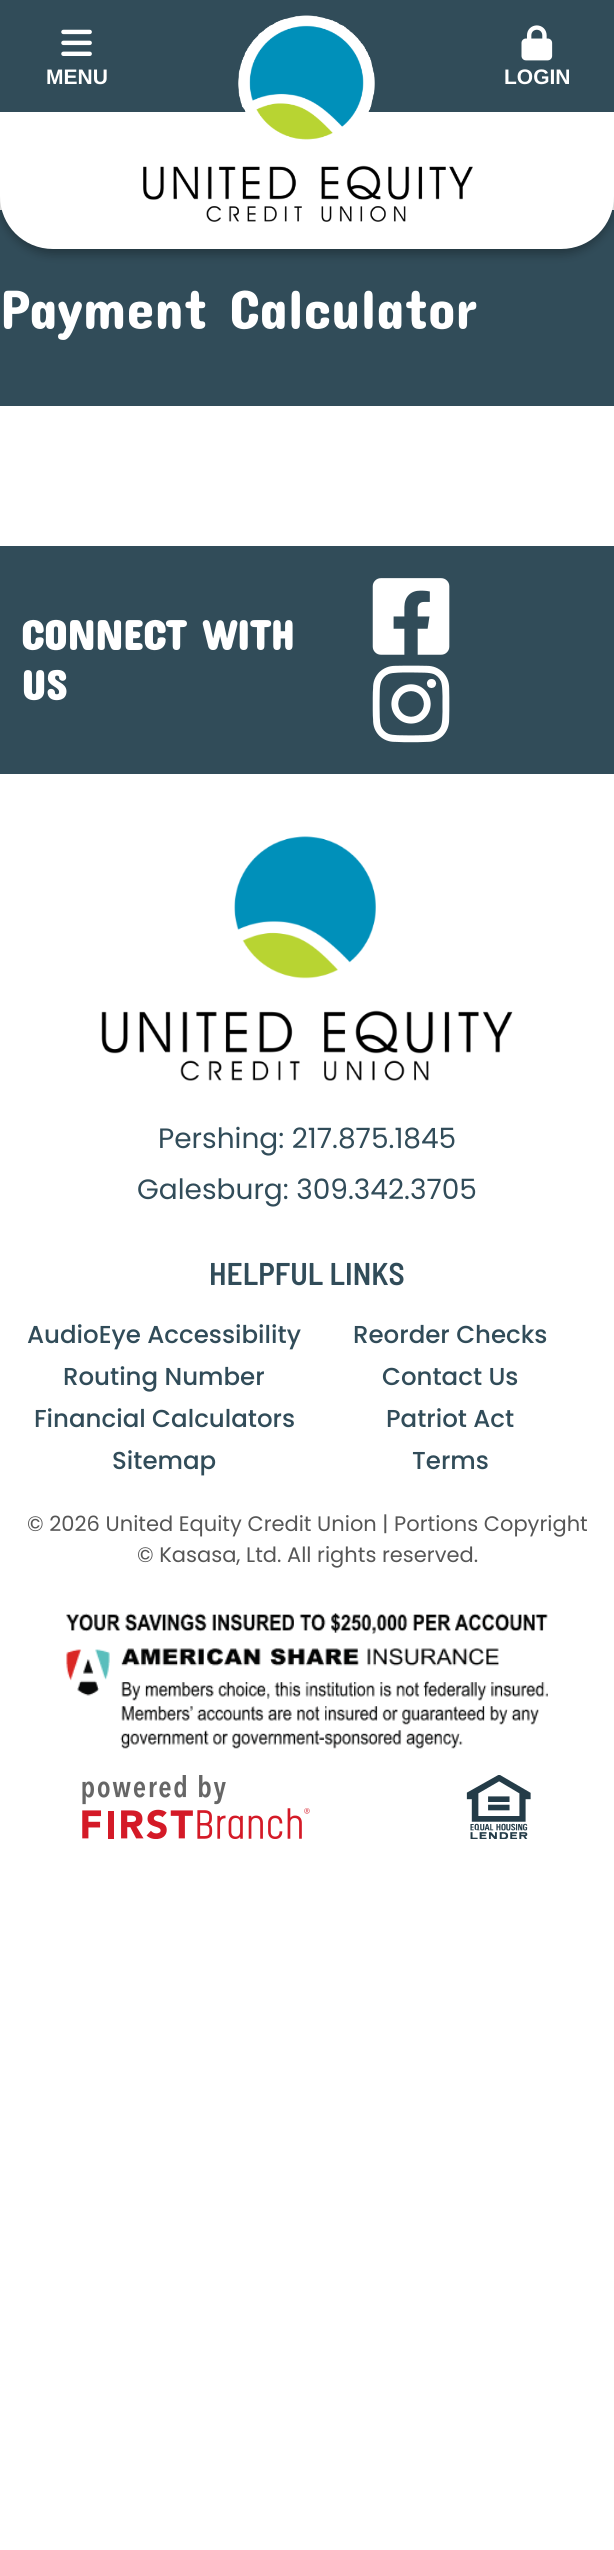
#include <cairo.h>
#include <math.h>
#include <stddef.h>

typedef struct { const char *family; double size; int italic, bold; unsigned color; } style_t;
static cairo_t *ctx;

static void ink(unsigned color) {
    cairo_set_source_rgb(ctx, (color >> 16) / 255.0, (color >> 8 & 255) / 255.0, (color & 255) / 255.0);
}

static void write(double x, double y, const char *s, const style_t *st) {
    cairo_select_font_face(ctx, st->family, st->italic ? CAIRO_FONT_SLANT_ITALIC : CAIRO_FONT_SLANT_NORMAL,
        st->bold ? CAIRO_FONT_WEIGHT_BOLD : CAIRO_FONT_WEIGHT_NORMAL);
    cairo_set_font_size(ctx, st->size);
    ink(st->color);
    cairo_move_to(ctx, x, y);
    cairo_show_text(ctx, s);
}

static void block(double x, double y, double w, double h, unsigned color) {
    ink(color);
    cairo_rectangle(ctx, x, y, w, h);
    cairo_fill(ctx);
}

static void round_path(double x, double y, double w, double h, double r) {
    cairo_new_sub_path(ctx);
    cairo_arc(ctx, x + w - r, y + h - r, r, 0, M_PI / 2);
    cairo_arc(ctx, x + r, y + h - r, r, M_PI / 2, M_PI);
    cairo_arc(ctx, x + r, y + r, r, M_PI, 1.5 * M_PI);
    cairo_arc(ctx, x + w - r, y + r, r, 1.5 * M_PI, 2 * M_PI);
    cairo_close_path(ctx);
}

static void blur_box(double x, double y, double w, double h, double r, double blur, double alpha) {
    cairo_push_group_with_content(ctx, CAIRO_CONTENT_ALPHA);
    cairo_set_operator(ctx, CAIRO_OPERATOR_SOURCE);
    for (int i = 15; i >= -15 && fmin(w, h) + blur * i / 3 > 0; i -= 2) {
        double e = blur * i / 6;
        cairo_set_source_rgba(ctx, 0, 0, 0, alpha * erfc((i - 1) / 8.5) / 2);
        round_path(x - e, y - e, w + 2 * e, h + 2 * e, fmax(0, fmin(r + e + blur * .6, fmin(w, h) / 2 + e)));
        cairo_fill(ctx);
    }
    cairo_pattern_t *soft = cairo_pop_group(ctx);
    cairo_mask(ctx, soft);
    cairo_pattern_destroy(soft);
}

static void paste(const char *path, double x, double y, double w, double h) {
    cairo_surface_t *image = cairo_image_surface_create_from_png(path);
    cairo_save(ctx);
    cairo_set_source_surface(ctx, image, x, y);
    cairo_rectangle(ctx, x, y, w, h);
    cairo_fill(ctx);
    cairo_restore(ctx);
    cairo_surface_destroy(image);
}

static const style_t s1 = {"Liberation Sans", 21, 0, 1, 0xffffff};
static const style_t s2 = {"Concert One", 56, 0, 0, 0xffffff};
static const style_t s3 = {"Concert One", 42, 0, 1, 0xffffff};
static const style_t s4 = {"Poppins", 28, 0, 0, 0x314c59};
static const style_t s5 = {"Barlow Semi Condensed SemiBold", 31.5, 0, 0, 0x314c59};
static const style_t s6 = {"Poppins Medium", 24.5, 0, 0, 0x314c59};
static const style_t s7 = {"Poppins", 21, 0, 0, 0x565656};

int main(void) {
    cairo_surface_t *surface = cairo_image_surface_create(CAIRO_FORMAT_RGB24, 614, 2550);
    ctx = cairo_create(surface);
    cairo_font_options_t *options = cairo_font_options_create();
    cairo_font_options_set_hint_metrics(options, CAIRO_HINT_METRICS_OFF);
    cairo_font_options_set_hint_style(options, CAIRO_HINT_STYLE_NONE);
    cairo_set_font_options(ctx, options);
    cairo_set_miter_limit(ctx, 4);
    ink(0xffffff);
    cairo_paint(ctx);
    block(0, 210, 614, 196, 0x314c59);
    ink(0x000000);
    blur_box(0, 5, 614, 249, 53, 5, 0.3);
    block(0, 0, 614, 112, 0x314c59);
    ink(0xffffff);
    cairo_new_path(ctx);
    cairo_move_to(ctx, 0, 112);
    cairo_line_to(ctx, 614, 112);
    cairo_line_to(ctx, 614, 196);
    cairo_curve_to(ctx, 614, 225.5, 590.5, 249, 561, 249);
    cairo_line_to(ctx, 53, 249);
    cairo_curve_to(ctx, 23.5, 249, 0, 225.5, 0, 196);
    cairo_close_path(ctx);
    cairo_fill(ctx);
    paste("pic1.png", 238, 15, 137, 97);
    paste("pic2.png", 143, 25, 330, 197);
    paste("pic3.png", 61, 29, 31, 27);
    write(46, 84, "MENU", &s1);
    paste("pic4.png", 521, 25, 32, 36);
    write(504, 84, "LOGIN", &s1);
    write(0, 329, "Payment Calculator", &s2);
    block(0, 546, 614, 228, 0x314c59);
    write(21, 650, "CONNECT WITH", &s3);
    write(21, 700, "US", &s3);
    paste("pic5.png", 372, 578, 78, 77);
    paste("pic6.png", 372, 665, 78, 78);
    paste("pic7.png", 101, 836, 412, 245);
    write(158, 1148, "Pershing: 217.875.1845", &s4);
    write(137, 1199, "Galesburg: 309.342.3705", &s4);
    write(209, 1285, "HELPFUL LINKS", &s5);
    write(27, 1343, "AudioEye Accessibility", &s6);
    write(353, 1343, "Reorder Checks", &s6);
    write(63, 1385, "Routing Number", &s6);
    write(382, 1385, "Contact Us", &s6);
    write(34, 1427, "Financial Calculators", &s6);
    write(386, 1427, "Patriot Act", &s6);
    write(112, 1469, "Sitemap", &s6);
    write(412, 1469, "Terms", &s6);
    write(27, 1531, "© 2026 United Equity Credit Union | Portions Copyright", &s7);
    write(137, 1562, "© Kasasa, Ltd. All rights reserved.", &s7);
    paste("pic8.png", 66, 1613, 482, 136);
    paste("pic9.png", 82, 1775, 228, 64);
    paste("pic10.png", 466, 1775, 65, 64);
    cairo_surface_write_to_png(surface, "screenshot.png");
    cairo_font_options_destroy(options);
    cairo_destroy(ctx);
    cairo_surface_destroy(surface);
    return 0;
}
